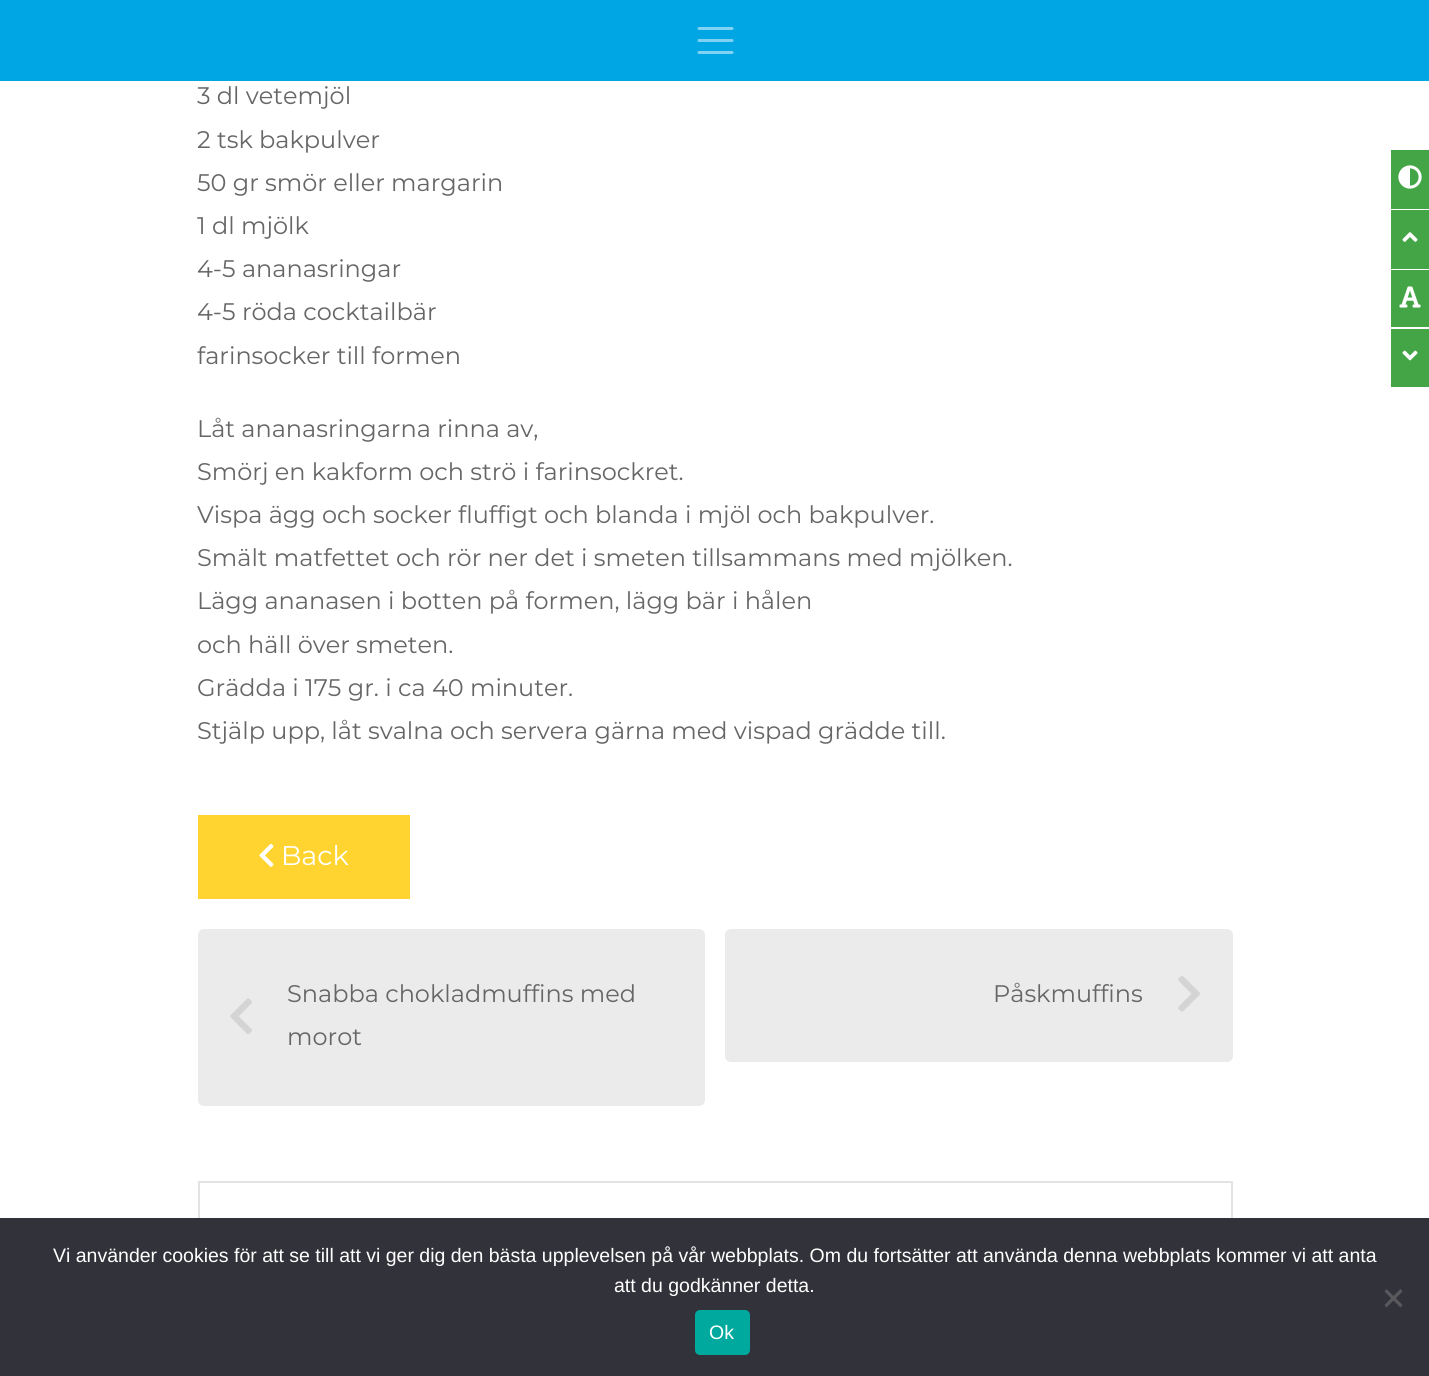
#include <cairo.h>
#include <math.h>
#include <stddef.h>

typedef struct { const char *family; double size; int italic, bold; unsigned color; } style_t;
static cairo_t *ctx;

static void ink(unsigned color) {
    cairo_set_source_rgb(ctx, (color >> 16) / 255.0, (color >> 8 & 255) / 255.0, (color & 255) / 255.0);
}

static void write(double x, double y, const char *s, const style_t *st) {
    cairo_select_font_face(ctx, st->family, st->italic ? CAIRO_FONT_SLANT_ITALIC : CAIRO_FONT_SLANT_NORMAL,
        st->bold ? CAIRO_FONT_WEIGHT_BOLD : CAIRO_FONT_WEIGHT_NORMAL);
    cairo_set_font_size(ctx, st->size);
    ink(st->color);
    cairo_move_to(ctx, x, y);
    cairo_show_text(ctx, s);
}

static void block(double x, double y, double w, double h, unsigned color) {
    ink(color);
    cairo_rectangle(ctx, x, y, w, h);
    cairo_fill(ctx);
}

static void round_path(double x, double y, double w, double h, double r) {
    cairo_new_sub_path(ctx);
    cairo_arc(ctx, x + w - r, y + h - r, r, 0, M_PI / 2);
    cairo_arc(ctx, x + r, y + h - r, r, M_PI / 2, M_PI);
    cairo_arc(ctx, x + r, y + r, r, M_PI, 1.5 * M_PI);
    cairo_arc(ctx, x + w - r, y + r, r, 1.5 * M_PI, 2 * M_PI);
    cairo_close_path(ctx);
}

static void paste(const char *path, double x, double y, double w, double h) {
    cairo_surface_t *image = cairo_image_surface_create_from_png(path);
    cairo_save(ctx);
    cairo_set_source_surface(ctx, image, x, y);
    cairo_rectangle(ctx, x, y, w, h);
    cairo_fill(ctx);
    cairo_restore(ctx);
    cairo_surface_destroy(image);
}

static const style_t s1 = {"Montserrat", 24, 0, 0, 0x666666};
static const style_t s2 = {"Montserrat", 27, 0, 0, 0xffffff};
static const style_t s3 = {"Liberation Sans", 19.5, 0, 0, 0xffffff};

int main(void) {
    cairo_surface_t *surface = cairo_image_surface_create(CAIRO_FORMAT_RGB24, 1429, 1376);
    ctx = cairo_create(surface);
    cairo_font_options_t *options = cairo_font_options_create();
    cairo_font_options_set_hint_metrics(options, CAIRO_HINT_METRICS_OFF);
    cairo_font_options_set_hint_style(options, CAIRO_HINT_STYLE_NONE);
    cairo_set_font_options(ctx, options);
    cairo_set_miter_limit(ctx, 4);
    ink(0xffffff);
    cairo_paint(ctx);
    block(0, 0, 1429, 81, 0x00a5e4);
    cairo_new_path(ctx);
    cairo_move_to(ctx, 699, 28.5);
    cairo_line_to(ctx, 732, 28.5);
    cairo_move_to(ctx, 699, 40.5);
    cairo_line_to(ctx, 732, 40.5);
    cairo_move_to(ctx, 699, 52.5);
    cairo_line_to(ctx, 732, 52.5);
    ink(0x80d2f2);
    cairo_set_line_width(ctx, 3);
    cairo_set_line_cap(ctx, CAIRO_LINE_CAP_ROUND);
    cairo_stroke(ctx);
    write(197, 104, "3 dl vetemjöl", &s1);
    write(197, 148, "2 tsk bakpulver", &s1);
    write(197, 191, "50 gr smör eller margarin", &s1);
    write(197, 234, "1 dl mjölk", &s1);
    write(197, 277, "4-5 ananasringar", &s1);
    write(197, 320, "4-5 röda cocktailbär", &s1);
    write(197, 364, "farinsocker till formen", &s1);
    write(197, 437, "Låt ananasringarna rinna av,", &s1);
    write(197, 480, "Smörj en kakform och strö i farinsockret.", &s1);
    write(197, 523, "Vispa ägg och socker fluffigt och blanda i mjöl och bakpulver.", &s1);
    write(197, 566, "Smält matfettet och rör ner det i smeten tillsammans med mjölken.", &s1);
    write(197, 609, "Lägg ananasen i botten på formen, lägg bär i hålen", &s1);
    write(197, 653, "och häll över smeten.", &s1);
    write(197, 696, "Grädda i 175 gr. i ca 40 minuter.", &s1);
    write(197, 739, "Stjälp upp, låt svalna och servera gärna med vispad grädde till.", &s1);
    block(198, 815, 212, 84, 0xffd430);
    paste("pic1.png", 259, 843, 15, 24);
    write(281, 865, "Back", &s2);
    ink(0xebebeb);
    round_path(198, 929, 507, 177, 6);
    cairo_fill(ctx);
    write(287, 1002, "Snabba chokladmuffins med", &s1);
    paste("pic2.png", 230, 998, 22, 36);
    write(287, 1045, "morot", &s1);
    ink(0xebebeb);
    round_path(725, 929, 508, 133, 6);
    cairo_fill(ctx);
    write(993, 1002, "Påskmuffins", &s1);
    paste("pic3.png", 1178, 976, 22, 36);
    cairo_rectangle(ctx, 199, 1182, 1033, 152);
    ink(0xe3e3e3);
    cairo_set_line_width(ctx, 2);
    cairo_set_line_cap(ctx, CAIRO_LINE_CAP_BUTT);
    cairo_stroke(ctx);
    block(1391, 150, 38, 59, 0x44a547);
    paste("pic4.png", 1398, 165, 24, 24);
    block(1391, 210, 38, 59, 0x44a547);
    paste("pic5.png", 1402, 232, 16, 10);
    block(1391, 270, 38, 57, 0x44a547);
    paste("pic6.png", 1399, 286, 22, 22);
    block(1391, 329, 38, 58, 0x44a547);
    paste("pic7.png", 1402, 350, 16, 11);
    block(0, 1218, 1429, 158, 0x32323a);
    write(53, 1262, "Vi använder cookies för att se till att vi ger dig den bästa upplevelsen på vår webbplats. Om du fortsätter att använda denna webbplats kommer vi att anta", &s3);
    write(614, 1292, "att du godkänner detta.", &s3);
    ink(0x59595d);
    cairo_new_path(ctx);
    cairo_move_to(ctx, 1400.5, 1289);
    cairo_line_to(ctx, 1402.5, 1291.5);
    cairo_line_to(ctx, 1386.5, 1307.5);
    cairo_line_to(ctx, 1384.5, 1305);
    cairo_close_path(ctx);
    cairo_fill(ctx);
    cairo_new_path(ctx);
    cairo_move_to(ctx, 1384.5, 1291.5);
    cairo_line_to(ctx, 1386.5, 1289);
    cairo_line_to(ctx, 1402.5, 1305);
    cairo_line_to(ctx, 1400.5, 1307.5);
    cairo_close_path(ctx);
    cairo_fill(ctx);
    ink(0x00a99d);
    round_path(695, 1310, 55, 45, 5);
    cairo_fill(ctx);
    write(709, 1339, "Ok", &s3);
    cairo_surface_write_to_png(surface, "screenshot.png");
    cairo_font_options_destroy(options);
    cairo_destroy(ctx);
    cairo_surface_destroy(surface);
    return 0;
}
